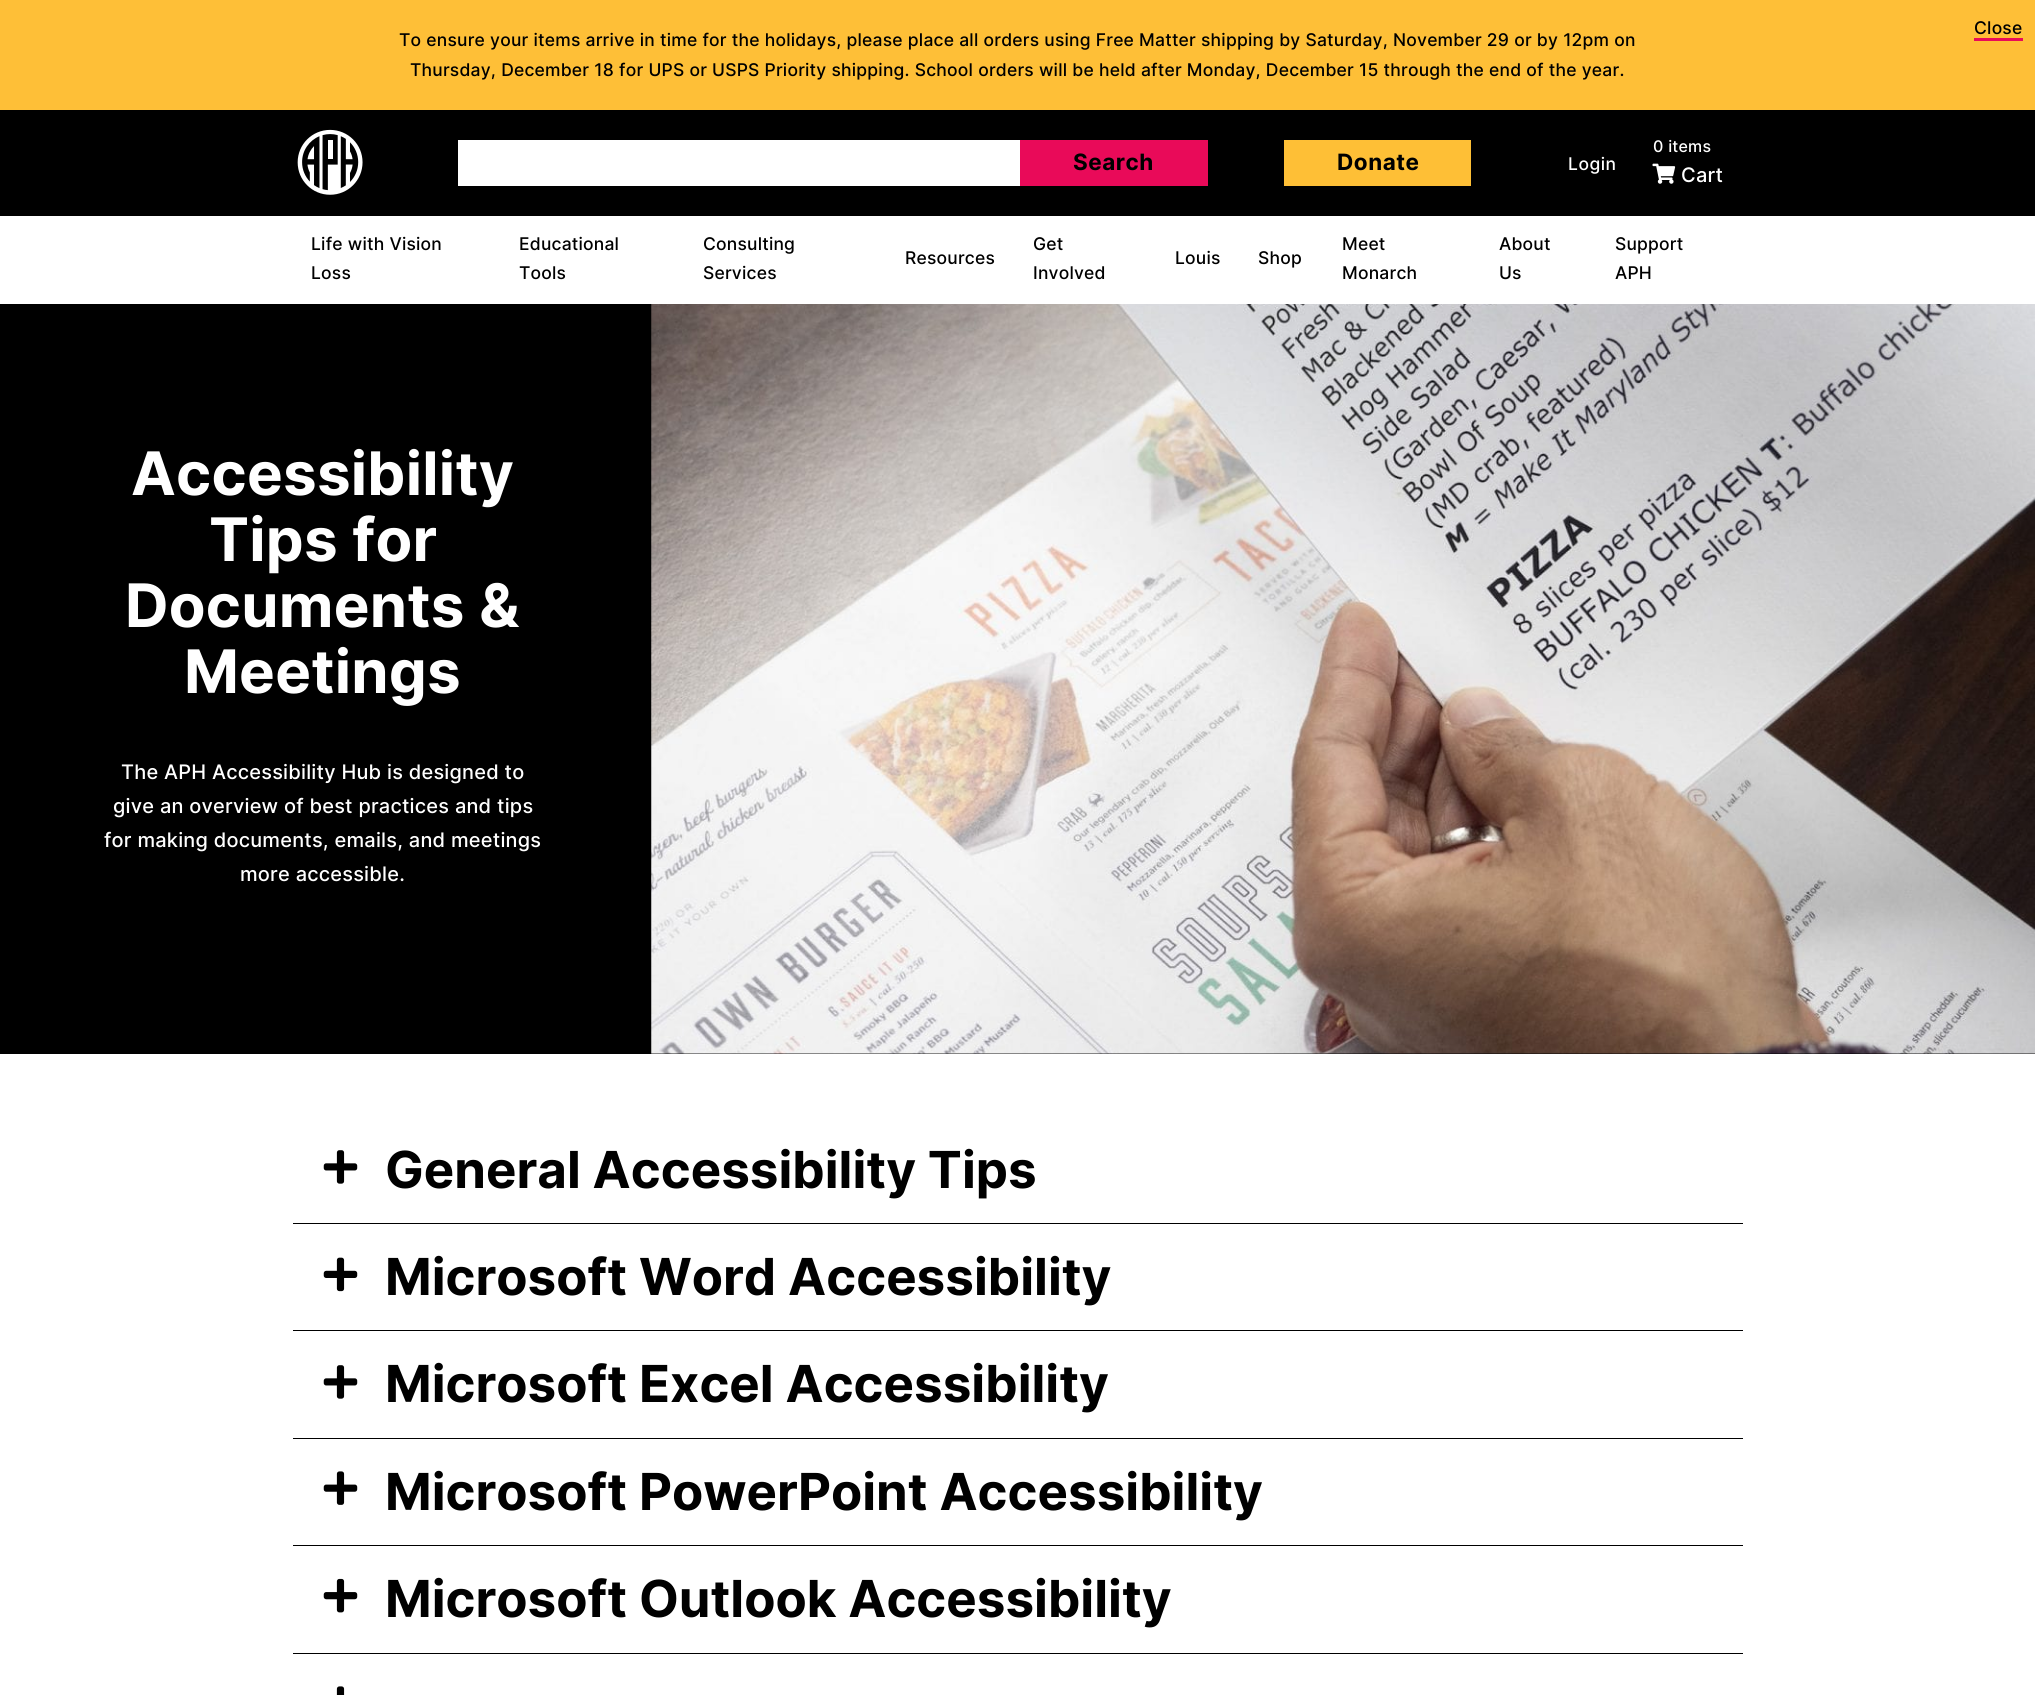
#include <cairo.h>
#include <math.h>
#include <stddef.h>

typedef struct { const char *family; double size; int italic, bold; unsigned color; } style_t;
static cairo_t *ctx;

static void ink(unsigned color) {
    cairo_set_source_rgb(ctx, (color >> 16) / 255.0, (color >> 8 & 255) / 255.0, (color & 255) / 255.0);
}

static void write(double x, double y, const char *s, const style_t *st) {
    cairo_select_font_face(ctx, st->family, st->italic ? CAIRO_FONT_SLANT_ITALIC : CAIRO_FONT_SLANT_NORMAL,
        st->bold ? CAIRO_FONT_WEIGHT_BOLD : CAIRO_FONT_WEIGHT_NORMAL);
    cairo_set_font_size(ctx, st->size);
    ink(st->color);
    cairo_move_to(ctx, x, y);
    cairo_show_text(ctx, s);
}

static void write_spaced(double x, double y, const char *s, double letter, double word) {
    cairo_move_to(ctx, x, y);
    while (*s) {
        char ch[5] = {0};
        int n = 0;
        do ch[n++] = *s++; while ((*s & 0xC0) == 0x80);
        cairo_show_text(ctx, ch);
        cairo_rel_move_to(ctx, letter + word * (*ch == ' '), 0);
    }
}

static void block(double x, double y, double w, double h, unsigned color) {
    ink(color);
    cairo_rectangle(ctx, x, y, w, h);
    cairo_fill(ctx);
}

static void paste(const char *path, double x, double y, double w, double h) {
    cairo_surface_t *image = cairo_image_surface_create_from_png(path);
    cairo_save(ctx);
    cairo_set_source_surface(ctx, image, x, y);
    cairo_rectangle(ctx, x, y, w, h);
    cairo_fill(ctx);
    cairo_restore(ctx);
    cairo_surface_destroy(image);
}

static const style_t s1 = {"Inter", 51, 0, 1, 0x000000};

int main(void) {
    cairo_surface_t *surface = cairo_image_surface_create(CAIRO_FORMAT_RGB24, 2035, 1695);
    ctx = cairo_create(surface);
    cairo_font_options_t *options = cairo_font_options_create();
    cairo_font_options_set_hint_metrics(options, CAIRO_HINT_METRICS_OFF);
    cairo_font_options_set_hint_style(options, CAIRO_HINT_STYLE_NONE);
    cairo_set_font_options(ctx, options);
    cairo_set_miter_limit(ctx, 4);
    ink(0xffffff);
    cairo_paint(ctx);
    block(0, 0, 2035, 110, 0xfebf37);
    cairo_select_font_face(ctx, "Inter Medium", CAIRO_FONT_SLANT_NORMAL, CAIRO_FONT_WEIGHT_NORMAL);
    cairo_set_font_size(ctx, 17.5);
    ink(0x000000);
    write_spaced(1974, 34, "Close", 0.2, 0);
    block(1974, 38, 49, 3, 0xe90a59);
    ink(0x000000);
    write_spaced(399, 46, "To ensure your items arrive in time for the holidays, please place all orders using Free Matter shipping by Saturday, November 29 or by 12pm on", 0.2, 0.2);
    write_spaced(410, 76, "Thursday, December 18 for UPS or USPS Priority shipping. School orders will be held after Monday, December 15 through the end of the year.", 0.2, 0.2);
    block(0, 110, 2035, 106, 0x000000);
    paste("pic1.png", 297, 129, 66, 66);
    block(458, 140, 562, 46, 0xffffff);
    block(1020, 140, 188, 46, 0xe90a59);
    cairo_select_font_face(ctx, "Inter", CAIRO_FONT_SLANT_NORMAL, CAIRO_FONT_WEIGHT_BOLD);
    cairo_set_font_size(ctx, 22.5);
    ink(0x000000);
    write_spaced(1073, 170, "Search", 0.5, 0);
    block(1284, 140, 187, 46, 0xfebf36);
    ink(0x000000);
    write_spaced(1337, 170, "Donate", 0.5, 0);
    cairo_select_font_face(ctx, "Inter Medium", CAIRO_FONT_SLANT_NORMAL, CAIRO_FONT_WEIGHT_NORMAL);
    cairo_set_font_size(ctx, 17.5);
    ink(0xffffff);
    write_spaced(1568, 170, "Login", 0.5, 0);
    cairo_set_font_size(ctx, 16);
    write_spaced(1653, 152, "0 items", 0.2, 0.2);
    paste("pic2.png", 1652, 163, 24, 21);
    cairo_set_font_size(ctx, 20);
    write_spaced(1681, 182, "Cart", 0.2, 0);
    cairo_set_font_size(ctx, 17.5);
    ink(0x000000);
    write_spaced(311, 250, "Life with Vision", 0.2, 0.2);
    write_spaced(311, 279, "Loss", 0.2, 0);
    write_spaced(519, 250, "Educational", 0.2, 0);
    write_spaced(519, 279, "Tools", 0.2, 0);
    write_spaced(703, 250, "Consulting", 0.2, 0);
    write_spaced(703, 279, "Services", 0.2, 0);
    write_spaced(905, 264, "Resources", 0.2, 0);
    write_spaced(1033, 250, "Get", 0.2, 0);
    write_spaced(1033, 279, "Involved", 0.2, 0);
    write_spaced(1175, 264, "Louis", 0.2, 0);
    write_spaced(1258, 264, "Shop", 0.2, 0);
    write_spaced(1342, 250, "Meet", 0.2, 0);
    write_spaced(1342, 279, "Monarch", 0.2, 0);
    write_spaced(1499, 250, "About", 0.2, 0);
    write_spaced(1499, 279, "Us", 0.2, 0);
    write_spaced(1615, 250, "Support", 0.2, 0);
    write_spaced(1615, 279, "APH", 0.2, 0);
    block(0, 304, 2035, 750, 0x000000);
    cairo_select_font_face(ctx, "Inter", CAIRO_FONT_SLANT_NORMAL, CAIRO_FONT_WEIGHT_BOLD);
    cairo_set_font_size(ctx, 60);
    ink(0xffffff);
    write_spaced(131, 495, "Accessibility", 0.2, 0);
    write_spaced(209, 561, "Tips for", 0.2, 0.2);
    write_spaced(125, 627, "Documents &", 0.2, 0.2);
    write_spaced(184, 693, "Meetings", 0.2, 0);
    cairo_select_font_face(ctx, "Inter Medium", CAIRO_FONT_SLANT_NORMAL, CAIRO_FONT_WEIGHT_NORMAL);
    cairo_set_font_size(ctx, 20);
    write_spaced(121, 779, "The APH Accessibility Hub is designed to", 0.2, 0.2);
    write_spaced(113, 813, "give an overview of best practices and tips", 0.2, 0.2);
    write_spaced(104, 847, "for making documents, emails, and meetings", 0.2, 0.2);
    write_spaced(240, 881, "more accessible.", 0.2, 0.2);
    paste("pic3.png", 651, 304, 1384, 750);
    block(293, 1223, 1450, 1, 0x000000);
    paste("pic4.png", 323, 1150, 35, 34);
    write(385, 1188, "General Accessibility Tips", &s1);
    block(293, 1330, 1450, 1, 0x000000);
    paste("pic5.png", 323, 1257, 35, 35);
    write(385, 1295, "Microsoft Word Accessibility", &s1);
    block(293, 1438, 1450, 1, 0x000000);
    paste("pic4.png", 323, 1365, 35, 34);
    write(385, 1402, "Microsoft Excel Accessibility", &s1);
    block(293, 1545, 1450, 1, 0x000000);
    paste("pic6.png", 323, 1471, 35, 34);
    write(385, 1510, "Microsoft PowerPoint Accessibility", &s1);
    block(293, 1653, 1450, 1, 0x000000);
    paste("pic7.png", 323, 1578, 35, 35);
    write(385, 1617, "Microsoft Outlook Accessibility", &s1);
    paste("pic8.png", 336, 1686, 9, 9);
    cairo_surface_write_to_png(surface, "screenshot.png");
    cairo_font_options_destroy(options);
    cairo_destroy(ctx);
    cairo_surface_destroy(surface);
    return 0;
}
